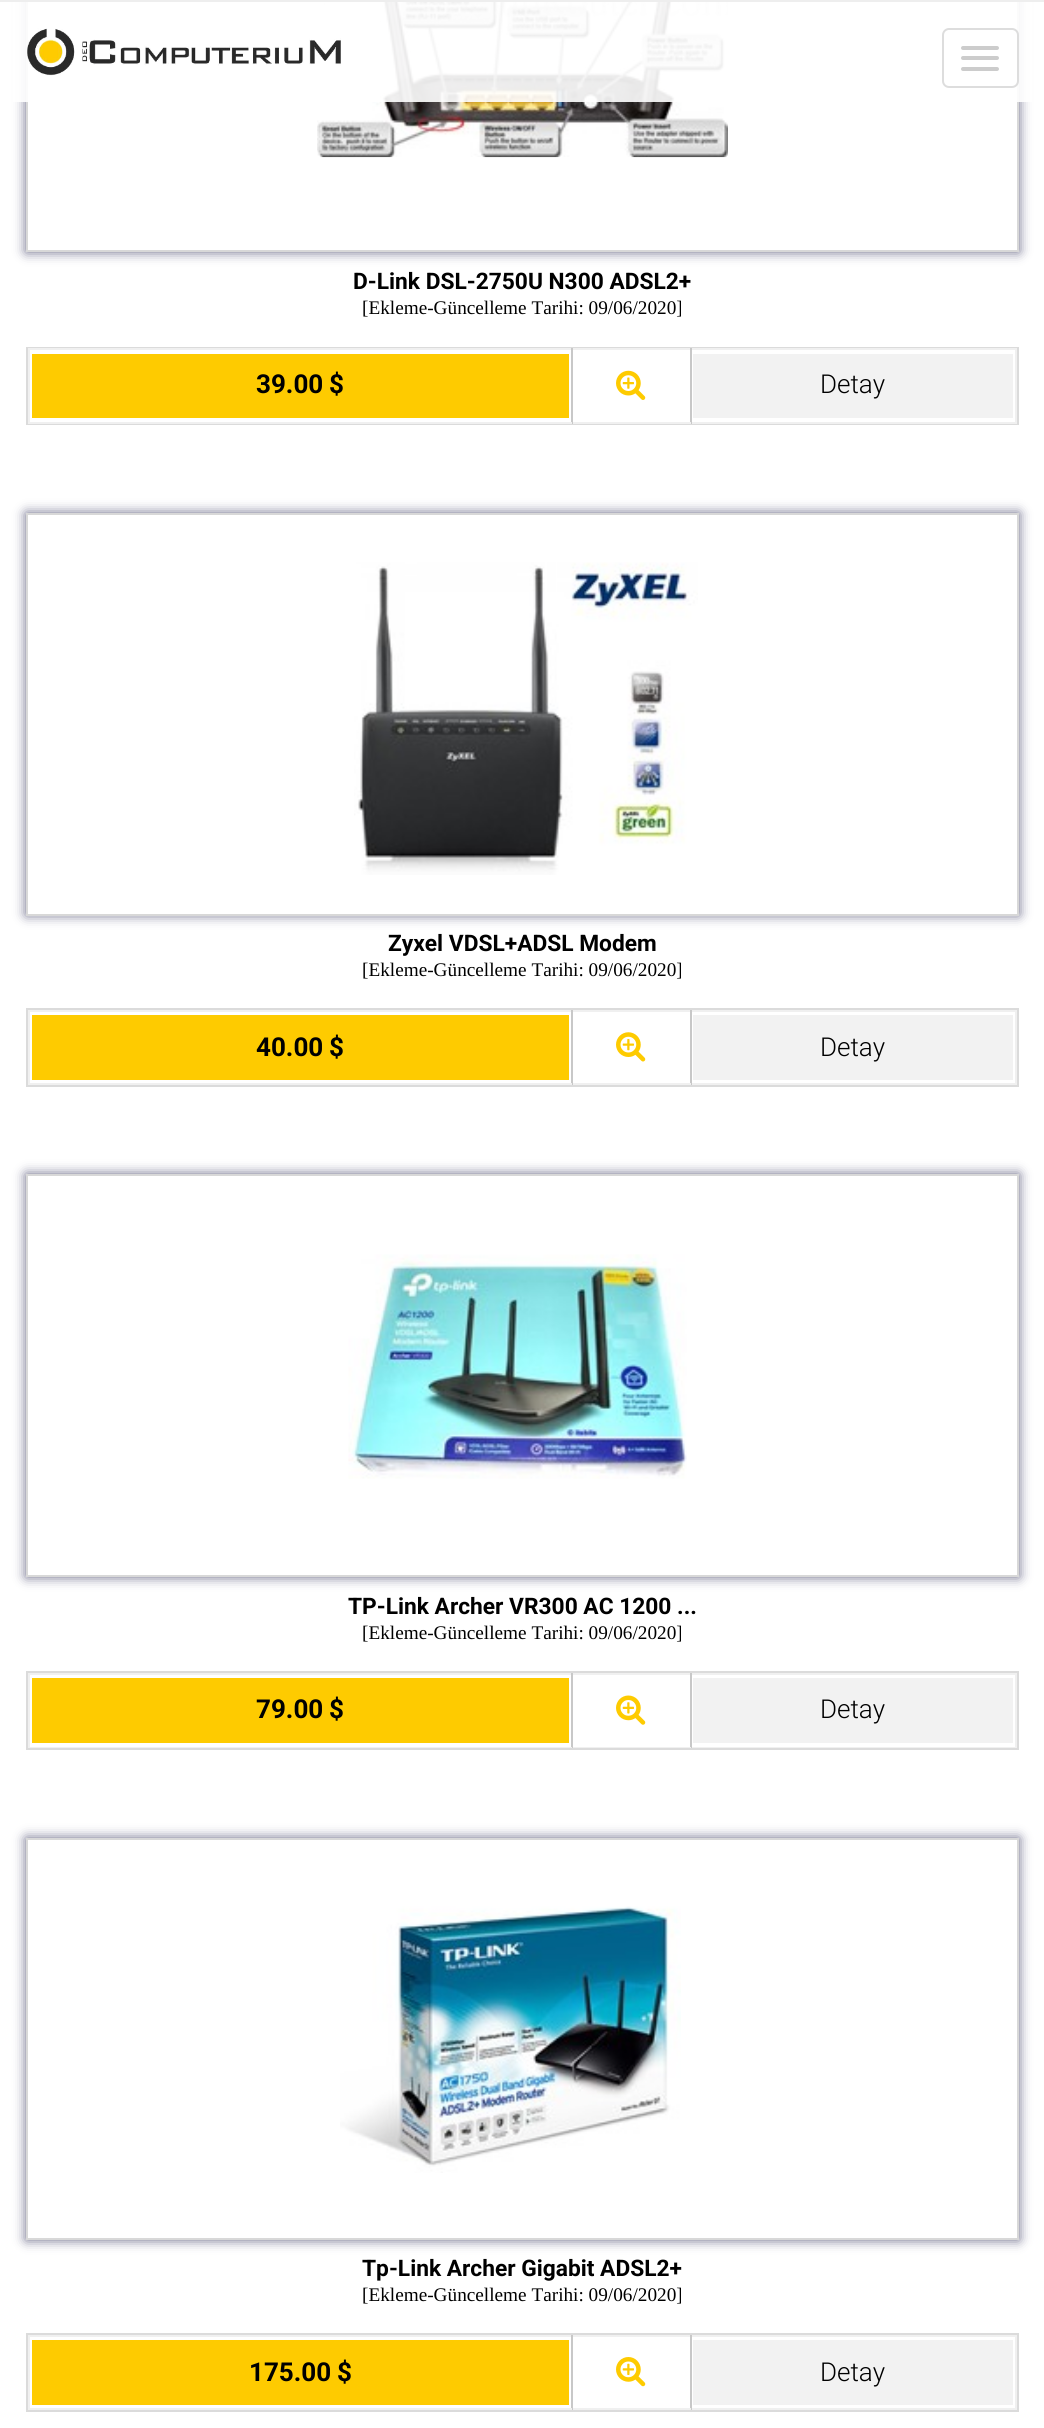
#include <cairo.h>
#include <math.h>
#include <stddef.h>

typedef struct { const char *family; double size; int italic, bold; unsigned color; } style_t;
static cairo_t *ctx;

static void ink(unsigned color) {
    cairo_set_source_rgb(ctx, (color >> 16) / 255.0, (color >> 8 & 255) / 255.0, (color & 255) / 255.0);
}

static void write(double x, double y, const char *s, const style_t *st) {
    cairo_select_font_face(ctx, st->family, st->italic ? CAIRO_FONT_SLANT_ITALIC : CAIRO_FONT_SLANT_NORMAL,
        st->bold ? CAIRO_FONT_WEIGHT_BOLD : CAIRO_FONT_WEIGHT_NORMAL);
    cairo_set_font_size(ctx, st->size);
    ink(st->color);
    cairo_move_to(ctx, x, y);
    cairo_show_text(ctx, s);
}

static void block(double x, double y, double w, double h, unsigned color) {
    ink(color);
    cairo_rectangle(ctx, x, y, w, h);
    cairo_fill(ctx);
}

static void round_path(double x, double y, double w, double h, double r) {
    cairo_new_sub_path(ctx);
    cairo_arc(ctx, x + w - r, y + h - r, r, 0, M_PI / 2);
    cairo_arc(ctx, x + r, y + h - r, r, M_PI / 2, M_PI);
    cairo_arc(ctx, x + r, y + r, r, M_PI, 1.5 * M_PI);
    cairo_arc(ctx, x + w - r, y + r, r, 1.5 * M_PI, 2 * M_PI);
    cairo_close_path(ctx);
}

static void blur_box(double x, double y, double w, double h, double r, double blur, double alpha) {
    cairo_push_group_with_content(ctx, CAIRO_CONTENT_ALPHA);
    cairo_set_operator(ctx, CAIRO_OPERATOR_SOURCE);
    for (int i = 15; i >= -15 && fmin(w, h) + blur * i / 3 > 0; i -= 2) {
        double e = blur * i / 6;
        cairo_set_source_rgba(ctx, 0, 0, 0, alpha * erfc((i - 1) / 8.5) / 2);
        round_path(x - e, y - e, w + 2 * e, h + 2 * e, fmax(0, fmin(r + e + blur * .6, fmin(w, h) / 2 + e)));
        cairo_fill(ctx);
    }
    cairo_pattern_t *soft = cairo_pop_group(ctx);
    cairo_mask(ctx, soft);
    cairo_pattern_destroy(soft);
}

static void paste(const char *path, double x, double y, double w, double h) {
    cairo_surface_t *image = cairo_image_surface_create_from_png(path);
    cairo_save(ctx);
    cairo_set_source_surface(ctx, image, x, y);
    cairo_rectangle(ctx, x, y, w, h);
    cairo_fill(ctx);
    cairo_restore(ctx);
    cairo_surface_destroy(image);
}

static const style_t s1 = {"Roboto", 22.75, 0, 1, 0x000000};
static const style_t s2 = {"Liberation Serif", 19.25, 0, 0, 0x000000};
static const style_t s3 = {"Roboto", 26, 0, 1, 0x000000};
static const style_t s4 = {"Roboto Light", 26, 0, 0, 0x000000};

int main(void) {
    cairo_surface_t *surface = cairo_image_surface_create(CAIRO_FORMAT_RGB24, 1044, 2428);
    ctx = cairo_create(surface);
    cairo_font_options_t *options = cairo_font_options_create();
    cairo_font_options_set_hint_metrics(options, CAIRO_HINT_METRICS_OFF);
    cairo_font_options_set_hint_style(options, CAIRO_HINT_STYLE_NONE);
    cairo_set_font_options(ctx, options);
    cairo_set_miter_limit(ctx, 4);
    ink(0xffffff);
    cairo_paint(ctx);
    cairo_save(ctx);
    cairo_set_fill_rule(ctx, CAIRO_FILL_RULE_EVEN_ODD);
    cairo_new_path(ctx);
    cairo_move_to(ctx, 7, 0);
    cairo_line_to(ctx, 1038, 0);
    cairo_line_to(ctx, 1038, 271);
    cairo_line_to(ctx, 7, 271);
    cairo_close_path(ctx);
    cairo_move_to(ctx, 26, -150);
    cairo_line_to(ctx, 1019, -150);
    cairo_line_to(ctx, 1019, 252);
    cairo_line_to(ctx, 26, 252);
    cairo_close_path(ctx);
    cairo_clip(ctx);
    ink(0x000034);
    blur_box(26, -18, 993, 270, 0, 6, 0.6);
    cairo_restore(ctx);
    block(1017, 0, 2, 252, 0xd8d8d8);
    block(26, 250, 993, 2, 0xd8d8d8);
    block(26, 0, 2, 252, 0xd8d8d8);
    paste("pic2.png", 317, 2, 411, 156);
    cairo_set_source_rgba(ctx, 1, 1, 1, 0.9);
    cairo_rectangle(ctx, 13, 2, 1019, 100);
    cairo_fill(ctx);
    block(0, 0, 1044, 2, 0xeeeeee);
    paste("pic1.png", 27, 28, 314, 48);
    round_path(943, 29, 75, 58, 6);
    ink(0xdddddd);
    cairo_stroke(ctx);
    ink(0xcccccc);
    round_path(961, 46, 38, 4, 2);
    cairo_fill(ctx);
    round_path(961, 56, 38, 4, 2);
    cairo_fill(ctx);
    round_path(961, 67, 38, 4, 2);
    cairo_fill(ctx);
    write(353, 289, "D-Link DSL-2750U N300 ADSL2+", &s1);
    write(362, 314, "[Ekleme-Güncelleme Tarihi: 09/06/2020]", &s2);
    cairo_rectangle(ctx, 27, 348, 991, 76);
    ink(0xdbdbdb);
    cairo_stroke(ctx);
    block(28, 348, 989, 2, 0xf0f0f0);
    block(1015, 348, 2, 76, 0xf0f0f0);
    block(690, 422, 327, 2, 0xf0f0f0);
    block(690, 348, 2, 76, 0xc8c8c8);
    block(571, 422, 120, 2, 0xf0f0f0);
    block(571, 348, 2, 76, 0xc8c8c8);
    block(28, 422, 544, 2, 0xf0f0f0);
    block(28, 348, 2, 76, 0xf0f0f0);
    block(32, 354, 537, 64, 0xfecb00);
    write(256, 393, "39.00", &s3);
    write(329, 393, "$", &s3);
    paste("pic3.png", 616, 370, 30, 30);
    block(693, 354, 320, 64, 0xf2f2f2);
    write(820, 393, "Detay", &s4);
    cairo_save(ctx);
    cairo_set_fill_rule(ctx, CAIRO_FILL_RULE_EVEN_ODD);
    cairo_new_path(ctx);
    cairo_move_to(ctx, 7, 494);
    cairo_line_to(ctx, 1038, 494);
    cairo_line_to(ctx, 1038, 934);
    cairo_line_to(ctx, 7, 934);
    cairo_close_path(ctx);
    cairo_move_to(ctx, 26, 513);
    cairo_line_to(ctx, 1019, 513);
    cairo_line_to(ctx, 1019, 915);
    cairo_line_to(ctx, 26, 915);
    cairo_close_path(ctx);
    cairo_clip(ctx);
    ink(0x000034);
    blur_box(26, 513, 993, 402, 0, 6, 0.6);
    cairo_restore(ctx);
    block(26, 513, 993, 2, 0xd8d8d8);
    block(1017, 513, 2, 402, 0xd8d8d8);
    block(26, 914, 993, 2, 0xd8d8d8);
    block(26, 513, 2, 402, 0xd8d8d8);
    paste("pic4.png", 354, 562, 344, 313);
    write(388, 951, "Zyxel VDSL+ADSL Modem", &s1);
    write(362, 976, "[Ekleme-Güncelleme Tarihi: 09/06/2020]", &s2);
    cairo_rectangle(ctx, 27, 1009, 991, 77);
    ink(0xdbdbdb);
    cairo_stroke(ctx);
    block(28, 1010, 989, 2, 0xf0f0f0);
    block(1015, 1010, 2, 75, 0xf0f0f0);
    block(690, 1083, 327, 2, 0xf0f0f0);
    block(690, 1010, 2, 75, 0xc8c8c8);
    block(571, 1083, 120, 2, 0xf0f0f0);
    block(571, 1010, 2, 75, 0xc8c8c8);
    block(28, 1083, 544, 2, 0xf0f0f0);
    block(28, 1010, 2, 75, 0xf0f0f0);
    block(32, 1015, 537, 65, 0xfecb00);
    write(256, 1056, "40.00", &s3);
    write(329, 1056, "$", &s3);
    paste("pic5.png", 616, 1032, 30, 30);
    block(693, 1015, 320, 65, 0xf2f2f2);
    write(820, 1056, "Detay", &s4);
    cairo_save(ctx);
    cairo_set_fill_rule(ctx, CAIRO_FILL_RULE_EVEN_ODD);
    cairo_new_path(ctx);
    cairo_move_to(ctx, 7, 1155);
    cairo_line_to(ctx, 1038, 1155);
    cairo_line_to(ctx, 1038, 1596);
    cairo_line_to(ctx, 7, 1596);
    cairo_close_path(ctx);
    cairo_move_to(ctx, 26, 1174);
    cairo_line_to(ctx, 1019, 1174);
    cairo_line_to(ctx, 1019, 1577);
    cairo_line_to(ctx, 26, 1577);
    cairo_close_path(ctx);
    cairo_clip(ctx);
    ink(0x000034);
    blur_box(26, 1174, 993, 403, 0, 6, 0.6);
    cairo_restore(ctx);
    block(26, 1174, 993, 2, 0xd8d8d8);
    block(1017, 1174, 2, 403, 0xd8d8d8);
    block(26, 1575, 993, 2, 0xd8d8d8);
    block(26, 1174, 2, 403, 0xd8d8d8);
    paste("pic6.png", 348, 1254, 339, 225);
    write(348, 1614, "TP-Link Archer VR300 AC 1200 ...", &s1);
    write(362, 1639, "[Ekleme-Güncelleme Tarihi: 09/06/2020]", &s2);
    cairo_rectangle(ctx, 27, 1672, 991, 77);
    ink(0xdbdbdb);
    cairo_stroke(ctx);
    block(28, 1673, 989, 2, 0xf0f0f0);
    block(1015, 1673, 2, 75, 0xf0f0f0);
    block(690, 1747, 327, 1, 0xf0f0f0);
    block(690, 1673, 2, 75, 0xc8c8c8);
    block(571, 1747, 120, 1, 0xf0f0f0);
    block(571, 1673, 2, 75, 0xc8c8c8);
    block(28, 1747, 544, 1, 0xf0f0f0);
    block(28, 1673, 2, 75, 0xf0f0f0);
    block(32, 1678, 537, 65, 0xfecb00);
    write(256, 1718, "79.00", &s3);
    write(329, 1718, "$", &s3);
    paste("pic7.png", 616, 1695, 30, 30);
    block(693, 1678, 320, 65, 0xf2f2f2);
    write(820, 1718, "Detay", &s4);
    cairo_save(ctx);
    cairo_set_fill_rule(ctx, CAIRO_FILL_RULE_EVEN_ODD);
    cairo_new_path(ctx);
    cairo_move_to(ctx, 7, 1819);
    cairo_line_to(ctx, 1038, 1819);
    cairo_line_to(ctx, 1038, 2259);
    cairo_line_to(ctx, 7, 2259);
    cairo_close_path(ctx);
    cairo_move_to(ctx, 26, 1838);
    cairo_line_to(ctx, 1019, 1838);
    cairo_line_to(ctx, 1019, 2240);
    cairo_line_to(ctx, 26, 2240);
    cairo_close_path(ctx);
    cairo_clip(ctx);
    ink(0x000034);
    blur_box(26, 1838, 993, 402, 0, 6, 0.6);
    cairo_restore(ctx);
    block(26, 1838, 993, 2, 0xd8d8d8);
    block(1017, 1838, 2, 402, 0xd8d8d8);
    block(26, 2238, 993, 2, 0xd8d8d8);
    block(26, 1838, 2, 402, 0xd8d8d8);
    paste("pic8.png", 340, 1906, 341, 267);
    write(362, 2276, "Tp-Link Archer Gigabit ADSL2+", &s1);
    write(362, 2301, "[Ekleme-Güncelleme Tarihi: 09/06/2020]", &s2);
    cairo_rectangle(ctx, 27, 2334, 991, 77);
    ink(0xdbdbdb);
    cairo_stroke(ctx);
    block(28, 2335, 989, 2, 0xf0f0f0);
    block(1015, 2335, 2, 75, 0xf0f0f0);
    block(690, 2408, 327, 2, 0xf0f0f0);
    block(690, 2335, 2, 75, 0xc8c8c8);
    block(571, 2408, 120, 2, 0xf0f0f0);
    block(571, 2335, 2, 75, 0xc8c8c8);
    block(28, 2408, 544, 2, 0xf0f0f0);
    block(28, 2335, 2, 75, 0xf0f0f0);
    block(32, 2340, 537, 65, 0xfecb00);
    write(249, 2381, "175.00", &s3);
    write(337, 2381, "$", &s3);
    paste("pic9.png", 616, 2357, 30, 30);
    block(693, 2340, 320, 65, 0xf2f2f2);
    write(820, 2381, "Detay", &s4);
    cairo_surface_write_to_png(surface, "screenshot.png");
    cairo_font_options_destroy(options);
    cairo_destroy(ctx);
    cairo_surface_destroy(surface);
    return 0;
}
